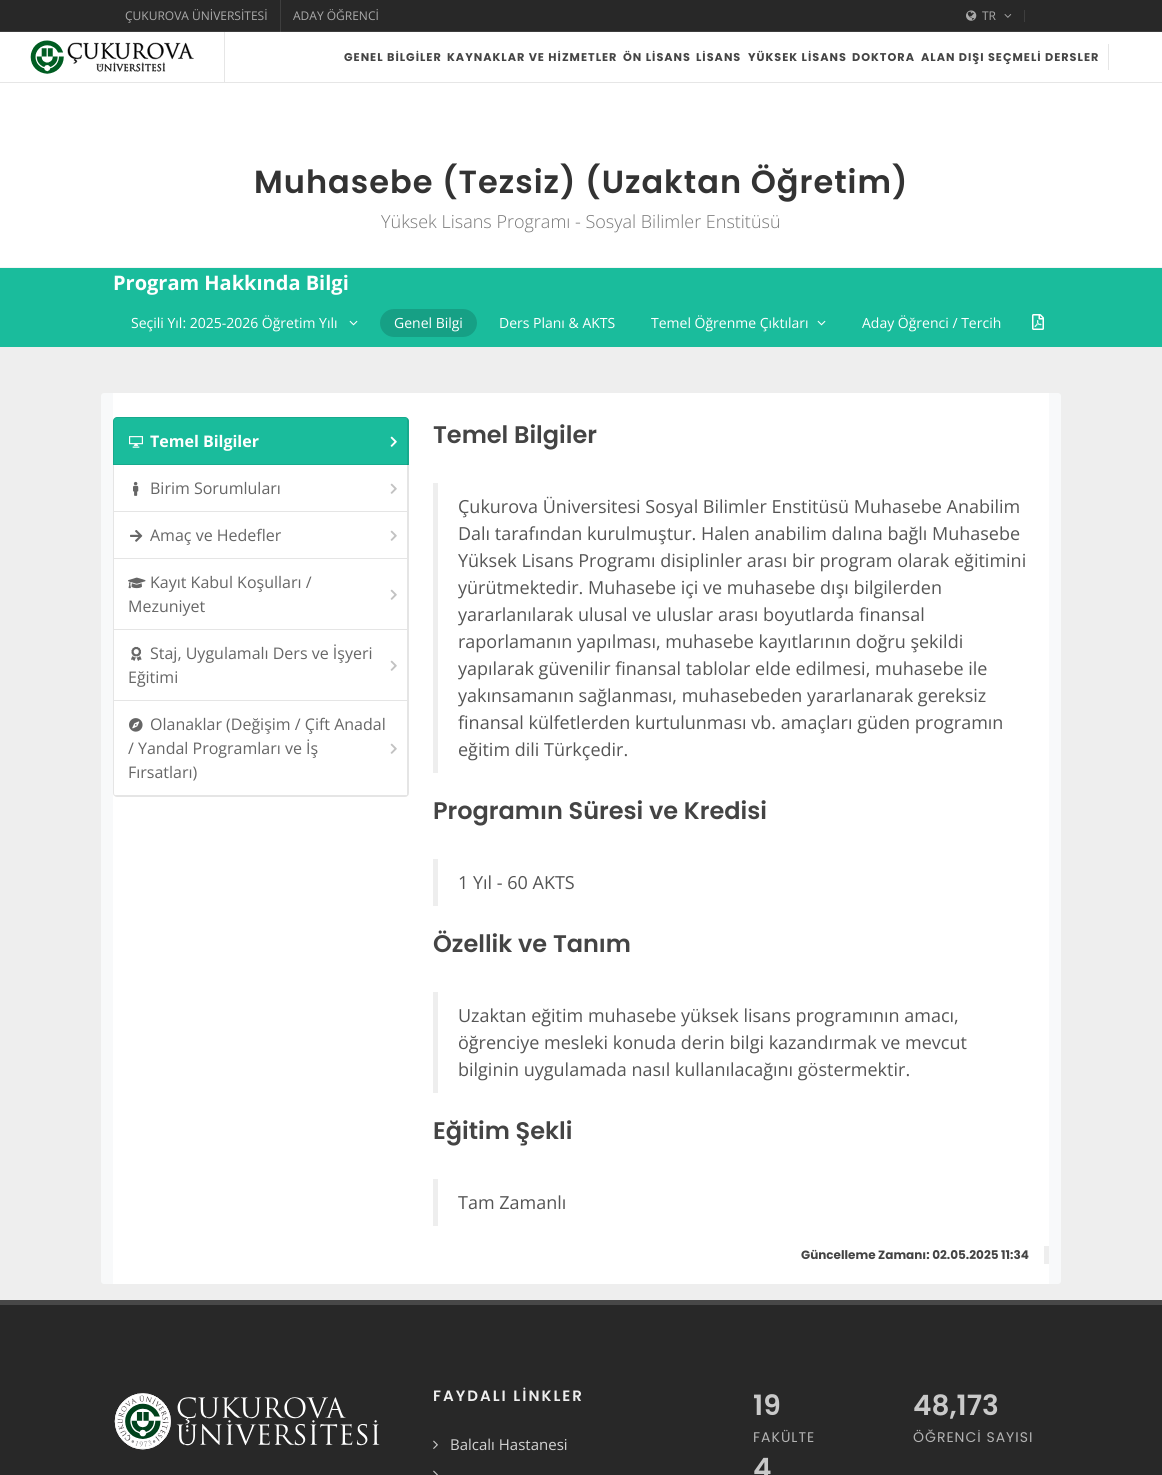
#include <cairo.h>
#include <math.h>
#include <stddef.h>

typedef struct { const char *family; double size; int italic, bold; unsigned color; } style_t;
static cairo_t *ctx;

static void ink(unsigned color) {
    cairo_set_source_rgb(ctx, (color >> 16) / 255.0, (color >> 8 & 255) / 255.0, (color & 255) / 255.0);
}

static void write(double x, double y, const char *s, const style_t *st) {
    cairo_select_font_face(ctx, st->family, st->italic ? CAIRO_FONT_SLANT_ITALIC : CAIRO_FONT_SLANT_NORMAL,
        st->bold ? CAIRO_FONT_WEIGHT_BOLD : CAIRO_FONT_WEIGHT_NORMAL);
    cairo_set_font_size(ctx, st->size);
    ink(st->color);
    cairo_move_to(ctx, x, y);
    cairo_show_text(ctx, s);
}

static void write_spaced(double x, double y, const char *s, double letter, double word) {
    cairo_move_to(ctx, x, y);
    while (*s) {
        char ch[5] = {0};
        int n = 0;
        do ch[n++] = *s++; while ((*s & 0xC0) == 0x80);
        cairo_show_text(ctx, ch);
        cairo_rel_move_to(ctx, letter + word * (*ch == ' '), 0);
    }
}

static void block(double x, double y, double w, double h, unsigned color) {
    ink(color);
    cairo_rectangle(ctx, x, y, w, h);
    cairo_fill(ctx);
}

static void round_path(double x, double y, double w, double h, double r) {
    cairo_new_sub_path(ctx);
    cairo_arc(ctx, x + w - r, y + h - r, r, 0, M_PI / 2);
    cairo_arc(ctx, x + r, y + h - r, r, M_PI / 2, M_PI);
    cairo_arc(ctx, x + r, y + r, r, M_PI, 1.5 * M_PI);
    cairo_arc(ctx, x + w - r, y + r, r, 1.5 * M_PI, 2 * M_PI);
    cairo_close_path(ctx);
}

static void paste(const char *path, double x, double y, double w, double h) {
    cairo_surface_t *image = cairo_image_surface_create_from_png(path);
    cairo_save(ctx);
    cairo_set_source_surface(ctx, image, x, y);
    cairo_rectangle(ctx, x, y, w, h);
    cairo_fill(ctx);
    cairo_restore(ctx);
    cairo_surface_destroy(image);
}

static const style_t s1 = {"Open Sans", 12, 0, 0, 0xaaaaaa};
static const style_t s2 = {"Open Sans Light", 18, 0, 0, 0x777777};
static const style_t s3 = {"Open Sans", 20, 0, 1, 0xffffff};
static const style_t s4 = {"Open Sans", 14, 0, 0, 0xffffff};
static const style_t s5 = {"Open Sans", 16, 0, 1, 0xffffff};
static const style_t s6 = {"Open Sans", 16, 0, 0, 0x666666};
static const style_t s7 = {"Poppins SemiBold", 24, 0, 0, 0x444444};
static const style_t s8 = {"Open Sans", 18, 0, 0, 0x555555};
static const style_t s9 = {"Poppins", 12, 0, 1, 0x444444};
static const style_t s10 = {"Open Sans", 15, 0, 0, 0xd4d4d4};
static const style_t s11 = {"Poppins SemiBold", 28, 0, 0, 0xc9c9c9};

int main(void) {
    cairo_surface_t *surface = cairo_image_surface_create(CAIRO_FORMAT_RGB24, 1162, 1475);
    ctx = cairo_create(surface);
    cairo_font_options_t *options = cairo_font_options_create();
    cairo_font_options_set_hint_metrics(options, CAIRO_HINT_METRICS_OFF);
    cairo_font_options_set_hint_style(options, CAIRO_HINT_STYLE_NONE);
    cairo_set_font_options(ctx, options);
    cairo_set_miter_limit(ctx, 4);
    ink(0xffffff);
    cairo_paint(ctx);
    block(0, 0, 1162, 31, 0x282828);
    block(280, 0, 1, 32, 0x3e3e3e);
    block(0, 31, 1162, 1, 0x3e3e3e);
    block(280, 31, 1, 1, 0x515151);
    write(125, 20, "ÇUKUROVA ÜNİVERSİTESİ", &s1);
    write(293, 20, "ADAY ÖĞRENCİ", &s1);
    paste("pic1.png", 966, 10, 11, 11);
    write(982, 20, "TR", &s1);
    paste("pic2.png", 1004, 14, 8, 4);
    block(1024, 10, 1, 12, 0x3e3e3e);
    block(0, 82, 1162, 1, 0xe6e6e6);
    block(224, 32, 1, 50, 0xe6e6e6);
    paste("pic3.png", 30, 40, 164, 34);
    block(1108, 44, 1, 26, 0xe6e6e6);
    cairo_select_font_face(ctx, "Poppins", CAIRO_FONT_SLANT_NORMAL, CAIRO_FONT_WEIGHT_BOLD);
    cairo_set_font_size(ctx, 11.25);
    ink(0x444444);
    write_spaced(344, 61, "GENEL BİLGİLER", 1, 0);
    write_spaced(447, 61, "KAYNAKLAR VE HİZMETLER", 1, 0);
    write_spaced(623, 61, "ÖN LİSANS", 1, 0);
    write_spaced(696, 61, "LİSANS", 1, 0);
    write_spaced(748, 61, "YÜKSEK LİSANS", 1, 0);
    write_spaced(852, 61, "DOKTORA", 1, 0);
    write_spaced(921, 61, "ALAN DIŞI SEÇMELİ DERSLER", 1, 0);
    block(0, 267, 1162, 1, 0xf5f5f5);
    cairo_select_font_face(ctx, "Poppins SemiBold", CAIRO_FONT_SLANT_NORMAL, CAIRO_FONT_WEIGHT_NORMAL);
    cairo_set_font_size(ctx, 32);
    ink(0x333333);
    write_spaced(254, 193, "Muhasebe (Tezsiz) (Uzaktan Öğretim)", 1, 0);
    write(381, 228, "Yüksek Lisans Programı - Sosyal Bilimler Enstitüsü", &s2);
    block(0, 268, 1162, 79, 0x1abc9c);
    write(113, 290, "Program Hakkında Bilgi", &s3);
    write(131, 328, "Seçili Yıl: 2025-2026 Öğretim Yılı", &s4);
    paste("pic4.png", 349, 320, 9, 6);
    ink(0x16a085);
    round_path(380, 309, 97, 28, 14);
    cairo_fill(ctx);
    write(394, 328, "Genel Bilgi", &s4);
    write(499, 328, "Ders Planı & AKTS", &s4);
    write(651, 328, "Temel Öğrenme Çıktıları", &s4);
    paste("pic4.png", 817, 320, 9, 6);
    write(862, 328, "Aday Öğrenci / Tercih", &s4);
    paste("pic5.png", 1032, 314, 12, 16);
    block(0, 347, 1162, 953, 0xeeeeee);
    ink(0xf8f9fa);
    round_path(101, 393, 960, 891, 3);
    cairo_fill(ctx);
    block(113, 393, 936, 891, 0xffffff);
    block(407, 464, 2, 48, 0xe5e5e5);
    block(113, 511, 296, 1, 0xe5e5e5);
    block(113, 464, 1, 48, 0xe5e5e5);
    ink(0x1abc9c);
    cairo_new_path(ctx);
    cairo_move_to(ctx, 117, 417);
    cairo_line_to(ctx, 405, 417);
    cairo_curve_to(ctx, 407, 417, 409, 419, 409, 421);
    cairo_line_to(ctx, 409, 465);
    cairo_line_to(ctx, 113, 465);
    cairo_line_to(ctx, 113, 421);
    cairo_curve_to(ctx, 113, 419, 115, 417, 117, 417);
    cairo_close_path(ctx);
    cairo_fill(ctx);
    cairo_new_path(ctx);
    cairo_move_to(ctx, 117, 417.5);
    cairo_line_to(ctx, 405, 417.5);
    cairo_curve_to(ctx, 407, 417.5, 408.5, 419, 408.5, 421);
    cairo_line_to(ctx, 408.5, 464.5);
    cairo_line_to(ctx, 113.5, 464.5);
    cairo_line_to(ctx, 113.5, 421);
    cairo_curve_to(ctx, 113.5, 419, 115, 417.5, 117, 417.5);
    cairo_close_path(ctx);
    cairo_set_source_rgba(ctx, 0, 0, 0, 0.1);
    cairo_set_line_width(ctx, 1);
    cairo_stroke(ctx);
    cairo_rectangle(ctx, 407, 419, 1, 46);
    cairo_fill(ctx);
    paste("pic6.png", 129, 436, 14, 12);
    write(150, 447, "Temel Bilgiler", &s5);
    paste("pic7.png", 390, 436, 7, 11);
    paste("pic8.png", 133, 481, 6, 15);
    write(150, 494, "Birim Sorumluları", &s6);
    paste("pic9.png", 390, 483, 7, 11);
    block(407, 511, 2, 48, 0xe5e5e5);
    block(113, 558, 296, 1, 0xe5e5e5);
    block(113, 511, 1, 48, 0xe5e5e5);
    paste("pic10.png", 130, 530, 13, 12);
    write(150, 541, "Amaç ve Hedefler", &s6);
    paste("pic9.png", 390, 530, 7, 11);
    block(407, 558, 2, 72, 0xe5e5e5);
    block(113, 629, 296, 1, 0xe5e5e5);
    block(113, 558, 1, 143, 0xe5e5e5);
    paste("pic11.png", 128, 577, 18, 12);
    write(150, 588, "Kayıt Kabul Koşulları /", &s6);
    paste("pic9.png", 390, 589, 7, 11);
    write(128, 612, "Mezuniyet", &s6);
    block(407, 629, 2, 72, 0xe5e5e5);
    paste("pic12.png", 131, 646, 11, 15);
    write(150, 659, "Staj, Uygulamalı Ders ve İşyeri", &s6);
    paste("pic9.png", 390, 660, 7, 11);
    write(128, 683, "Eğitimi", &s6);
    cairo_new_path(ctx);
    cairo_move_to(ctx, 113.5, 700.5);
    cairo_line_to(ctx, 408.5, 700.5);
    cairo_line_to(ctx, 408.5, 793);
    cairo_curve_to(ctx, 408.5, 795, 407, 796.5, 405, 796.5);
    cairo_line_to(ctx, 117, 796.5);
    cairo_curve_to(ctx, 115, 796.5, 113.5, 795, 113.5, 793);
    cairo_close_path(ctx);
    ink(0xe5e5e5);
    cairo_stroke(ctx);
    block(407, 700, 1, 95, 0xe5e5e5);
    block(115, 795, 292, 1, 0xe5e5e5);
    paste("pic13.png", 129, 718, 14, 14);
    write(150, 730, "Olanaklar (Değişim / Çift Anadal", &s6);
    write(128, 754, "/ Yandal Programları ve İş", &s6);
    paste("pic9.png", 390, 743, 7, 11);
    write(128, 778, "Fırsatları)", &s6);
    write(433, 443, "Temel Bilgiler", &s7);
    block(433, 483, 5, 290, 0xeeeeee);
    write(458, 513, "Çukurova Üniversitesi Sosyal Bilimler Enstitüsü Muhasebe Anabilim", &s8);
    write(458, 540, "Dalı tarafından kurulmuştur. Halen anabilim dalına bağlı Muhasebe", &s8);
    write(458, 567, "Yüksek Lisans Programı disiplinler arası bir program olarak eğitimini", &s8);
    write(458, 594, "yürütmektedir. Muhasebe içi ve muhasebe dışı bilgilerden", &s8);
    write(458, 621, "yararlanılarak ulusal ve uluslar arası boyutlarda finansal", &s8);
    write(458, 648, "raporlamanın yapılması, muhasebe kayıtlarının doğru şekildi", &s8);
    write(458, 675, "yapılarak güvenilir finansal tablolar elde edilmesi, muhasebe ile", &s8);
    write(458, 702, "yakınsamanın sağlanması, muhasebeden yararlanarak gereksiz", &s8);
    write(458, 729, "finansal külfetlerden kurtulunması vb. amaçları güden programın", &s8);
    write(458, 756, "eğitim dili Türkçedir.", &s8);
    write(433, 819, "Programın Süresi ve Kredisi", &s7);
    block(433, 859, 5, 47, 0xeeeeee);
    write(458, 889, "1 Yıl - 60 AKTS", &s8);
    write(433, 952, "Özellik ve Tanım", &s7);
    block(433, 992, 5, 101, 0xeeeeee);
    write(458, 1022, "Uzaktan eğitim muhasebe yüksek lisans programının amacı,", &s8);
    write(458, 1049, "öğrenciye mesleki konuda derin bilgi kazandırmak ve mevcut", &s8);
    write(458, 1076, "bilginin uygulamada nasıl kullanılacağını göstermektir.", &s8);
    write(433, 1139, "Eğitim Şekli", &s7);
    block(433, 1179, 5, 47, 0xeeeeee);
    write(458, 1209, "Tam Zamanlı", &s8);
    block(1044, 1246, 5, 18, 0xeeeeee);
    write(801, 1259, "Güncelleme Zamanı: 02.05.2025 11:34", &s9);
    block(0, 1305, 1162, 170, 0x282828);
    block(0, 1300, 1162, 5, 0x484848);
    paste("pic14.png", 114, 1393, 266, 57);
    cairo_select_font_face(ctx, "Poppins SemiBold", CAIRO_FONT_SLANT_NORMAL, CAIRO_FONT_WEIGHT_NORMAL);
    cairo_set_font_size(ctx, 15);
    ink(0xeeeeee);
    write_spaced(433, 1401, "FAYDALI LİNKLER", 2, 0);
    paste("pic15.png", 433, 1440, 5, 9);
    write(450, 1450, "Balcalı Hastanesi", &s10);
    paste("pic16.png", 433, 1470, 5, 5);
    write(753, 1415, "19", &s11);
    cairo_select_font_face(ctx, "Poppins", CAIRO_FONT_SLANT_NORMAL, CAIRO_FONT_WEIGHT_NORMAL);
    cairo_set_font_size(ctx, 14);
    ink(0xb3b3b3);
    write_spaced(753, 1442, "FAKÜLTE", 1, 0);
    write(753, 1478, "4", &s11);
    write(913, 1415, "48,173", &s11);
    cairo_select_font_face(ctx, "Poppins", CAIRO_FONT_SLANT_NORMAL, CAIRO_FONT_WEIGHT_NORMAL);
    cairo_set_font_size(ctx, 14);
    ink(0xb3b3b3);
    write_spaced(913, 1442, "ÖĞRENCİ SAYISI", 1, 0);
    cairo_surface_write_to_png(surface, "screenshot.png");
    cairo_font_options_destroy(options);
    cairo_destroy(ctx);
    cairo_surface_destroy(surface);
    return 0;
}
